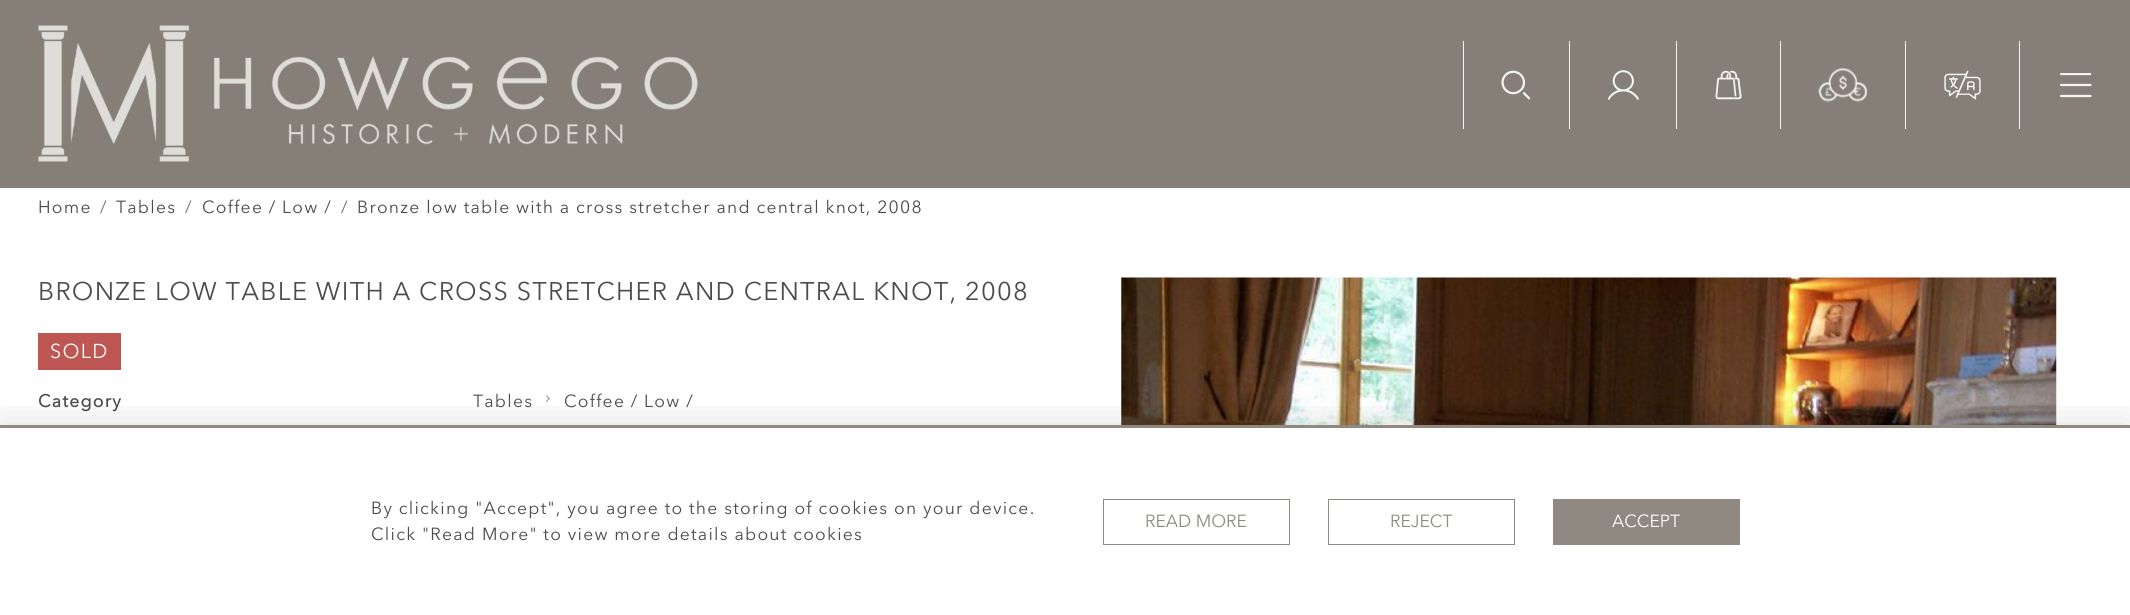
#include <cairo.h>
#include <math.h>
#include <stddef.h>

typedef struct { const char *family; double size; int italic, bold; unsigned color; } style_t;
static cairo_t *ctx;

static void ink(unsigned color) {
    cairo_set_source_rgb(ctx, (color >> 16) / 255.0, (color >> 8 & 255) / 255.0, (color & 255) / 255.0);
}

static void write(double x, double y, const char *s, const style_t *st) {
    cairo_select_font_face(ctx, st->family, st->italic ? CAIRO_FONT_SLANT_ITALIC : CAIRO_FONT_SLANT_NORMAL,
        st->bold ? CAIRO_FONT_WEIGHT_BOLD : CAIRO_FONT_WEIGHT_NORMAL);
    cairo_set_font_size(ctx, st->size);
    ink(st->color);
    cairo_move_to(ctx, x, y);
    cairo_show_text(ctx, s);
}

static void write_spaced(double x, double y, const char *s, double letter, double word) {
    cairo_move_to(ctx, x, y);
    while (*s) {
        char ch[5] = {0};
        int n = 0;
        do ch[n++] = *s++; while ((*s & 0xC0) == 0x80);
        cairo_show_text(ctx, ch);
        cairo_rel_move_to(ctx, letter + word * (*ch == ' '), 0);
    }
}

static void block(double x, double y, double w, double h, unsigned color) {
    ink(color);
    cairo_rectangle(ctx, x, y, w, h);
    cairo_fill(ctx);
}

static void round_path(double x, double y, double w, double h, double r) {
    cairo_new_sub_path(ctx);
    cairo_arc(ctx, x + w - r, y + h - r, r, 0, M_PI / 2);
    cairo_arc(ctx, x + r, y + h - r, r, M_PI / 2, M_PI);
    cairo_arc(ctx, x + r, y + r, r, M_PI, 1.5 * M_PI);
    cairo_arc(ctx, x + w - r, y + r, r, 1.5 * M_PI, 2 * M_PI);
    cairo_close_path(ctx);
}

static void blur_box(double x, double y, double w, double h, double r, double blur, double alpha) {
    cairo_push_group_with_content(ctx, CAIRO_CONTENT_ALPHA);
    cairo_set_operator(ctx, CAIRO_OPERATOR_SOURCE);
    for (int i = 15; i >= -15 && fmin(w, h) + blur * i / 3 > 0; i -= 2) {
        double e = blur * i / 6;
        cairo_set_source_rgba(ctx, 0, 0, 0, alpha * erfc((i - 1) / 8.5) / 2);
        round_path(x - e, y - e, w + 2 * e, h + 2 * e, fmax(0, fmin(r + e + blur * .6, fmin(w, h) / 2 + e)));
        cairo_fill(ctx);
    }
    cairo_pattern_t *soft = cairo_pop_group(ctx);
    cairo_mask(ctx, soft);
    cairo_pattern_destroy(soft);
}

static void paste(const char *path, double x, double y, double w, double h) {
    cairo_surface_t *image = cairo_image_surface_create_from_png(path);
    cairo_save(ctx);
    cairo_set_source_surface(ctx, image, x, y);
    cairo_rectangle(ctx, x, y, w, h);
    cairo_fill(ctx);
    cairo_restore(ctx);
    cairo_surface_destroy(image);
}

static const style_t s1 = {"Avenir Next", 17.5, 0, 0, 0x8f8981};
static const style_t s2 = {"Avenir Next", 17.5, 0, 0, 0xffffff};

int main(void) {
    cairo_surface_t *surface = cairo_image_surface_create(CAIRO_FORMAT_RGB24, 2130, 615);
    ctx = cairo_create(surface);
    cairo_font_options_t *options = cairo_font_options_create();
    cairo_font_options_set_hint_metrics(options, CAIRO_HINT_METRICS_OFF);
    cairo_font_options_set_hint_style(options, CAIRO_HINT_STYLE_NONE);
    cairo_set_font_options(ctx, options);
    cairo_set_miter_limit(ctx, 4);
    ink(0xffffff);
    cairo_paint(ctx);
    block(0, 0, 2130, 188, 0x857f77);
    paste("pic1.png", 38, 25, 660, 137);
    block(1463, 41, 1, 88, 0xf4f5f0);
    paste("pic2.png", 1501, 70, 30, 30);
    block(1569, 41, 1, 88, 0xf4f5f0);
    paste("pic3.png", 1608, 70, 31, 30);
    block(1676, 41, 1, 88, 0xf4f5f0);
    paste("pic4.png", 1715, 70, 27, 30);
    block(1780, 41, 1, 88, 0xf4f5f0);
    paste("pic5.png", 1818, 68, 50, 34);
    block(1905, 41, 1, 88, 0xf4f5f0);
    paste("pic6.png", 1944, 70, 37, 30);
    block(2019, 41, 1, 88, 0xf4f5f0);
    cairo_save(ctx);
    cairo_rectangle(ctx, 2059, 73, 32, 25);
    cairo_clip(ctx);
    cairo_new_path(ctx);
    cairo_move_to(ctx, 2061, 74);
    cairo_line_to(ctx, 2090.5, 74);
    cairo_set_line_width(ctx, 2.2);
    cairo_set_line_cap(ctx, CAIRO_LINE_CAP_ROUND);
    cairo_stroke(ctx);
    cairo_restore(ctx);
    cairo_new_path(ctx);
    cairo_move_to(ctx, 2061, 85);
    cairo_line_to(ctx, 2090.5, 85);
    cairo_move_to(ctx, 2061, 96);
    cairo_line_to(ctx, 2090.5, 96);
    cairo_set_line_width(ctx, 2.2);
    cairo_set_line_cap(ctx, CAIRO_LINE_CAP_ROUND);
    cairo_stroke(ctx);
    cairo_select_font_face(ctx, "Avenir Next", CAIRO_FONT_SLANT_NORMAL, CAIRO_FONT_WEIGHT_NORMAL);
    cairo_set_font_size(ctx, 17.5);
    ink(0x4c4c4b);
    write_spaced(38, 213, "Home", 1.25, 0);
    ink(0x6c757d);
    write_spaced(100, 213, "/", 1.25, 0);
    ink(0x4c4c4b);
    write_spaced(116, 213, "Tables", 1.25, 0);
    ink(0x6c757d);
    write_spaced(185, 213, "/", 1.25, 0);
    ink(0x4c4c4b);
    write_spaced(202, 213, "Coffee / Low /", 1.25, 0);
    ink(0x6c757d);
    write_spaced(341, 213, "/", 1.25, 0);
    ink(0x4c4c4b);
    write_spaced(357, 213, "Bronze low table with a cross stretcher and central knot, 2008", 1.25, 0);
    cairo_set_font_size(ctx, 25.4);
    write_spaced(38, 300, "BRONZE LOW TABLE WITH A CROSS STRETCHER AND CENTRAL KNOT, 2008", 1.25, 0);
    block(38, 333, 83, 37, 0xbe5754);
    cairo_set_font_size(ctx, 20);
    ink(0xffffff);
    write_spaced(50, 358, "SOLD", 1.25, 0);
    cairo_select_font_face(ctx, "Avenir Next", CAIRO_FONT_SLANT_NORMAL, CAIRO_FONT_WEIGHT_BOLD);
    cairo_set_font_size(ctx, 17.5);
    ink(0x4c4c4b);
    write_spaced(38, 407, "Category", 1.25, 0);
    cairo_select_font_face(ctx, "Avenir Next", CAIRO_FONT_SLANT_NORMAL, CAIRO_FONT_WEIGHT_NORMAL);
    write_spaced(473, 407, "Tables", 1.25, 0);
    paste("pic7.png", 546, 395, 4, 7);
    write_spaced(564, 407, "Coffee / Low /", 1.25, 0);
    paste("pic8.png", 1121, 277, 936, 148);
    cairo_save(ctx);
    cairo_rectangle(ctx, 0, 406, 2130, 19);
    cairo_clip(ctx);
    ink(0x000000);
    blur_box(0, 419, 2130, 190, 0, 16, 0.1);
    cairo_restore(ctx);
    block(0, 425, 2130, 3, 0x8f8981);
    ink(0x4c4c4b);
    write_spaced(371, 514, "By clicking \"Accept\", you agree to the storing of cookies on your device.", 1.25, 0);
    write_spaced(371, 540, "Click \"Read More\" to view more details about cookies", 1.25, 0);
    cairo_rectangle(ctx, 1103.5, 499.5, 186, 45);
    ink(0x8f8981);
    cairo_set_line_width(ctx, 1);
    cairo_set_line_cap(ctx, CAIRO_LINE_CAP_BUTT);
    cairo_stroke(ctx);
    write(1145, 527, "READ MORE", &s1);
    cairo_rectangle(ctx, 1328.5, 499.5, 186, 45);
    cairo_stroke(ctx);
    write(1390, 527, "REJECT", &s1);
    block(1553, 499, 187, 46, 0x8f8981);
    write(1612, 527, "ACCEPT", &s2);
    cairo_surface_write_to_png(surface, "screenshot.png");
    cairo_font_options_destroy(options);
    cairo_destroy(ctx);
    cairo_surface_destroy(surface);
    return 0;
}
